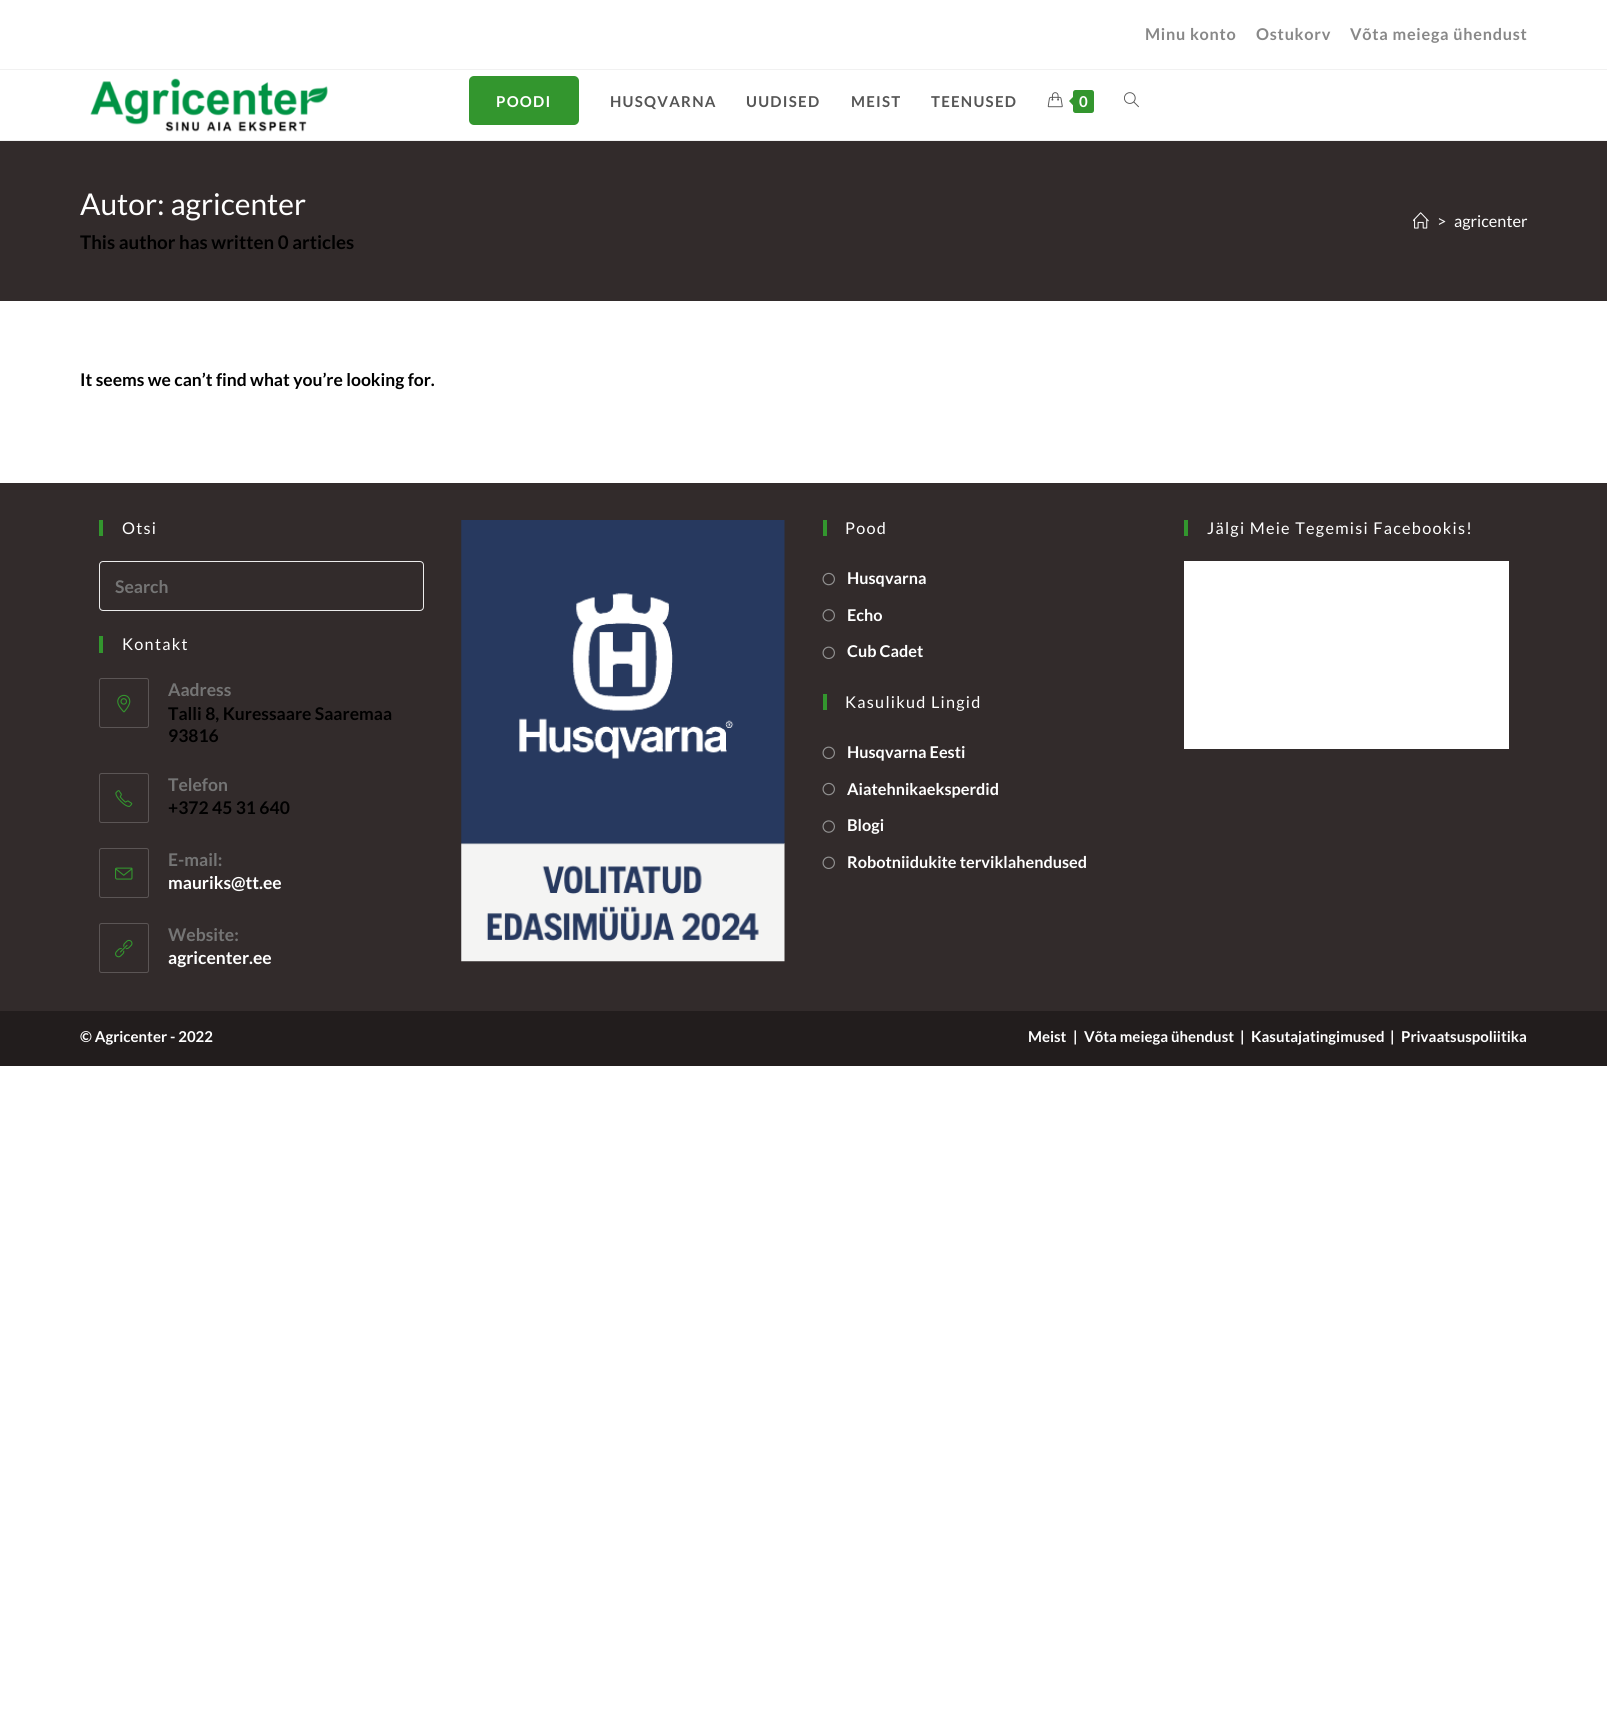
#include <cairo.h>
#include <math.h>
#include <stddef.h>

typedef struct { const char *family; double size; int italic, bold; unsigned color; } style_t;
static cairo_t *ctx;

static void ink(unsigned color) {
    cairo_set_source_rgb(ctx, (color >> 16) / 255.0, (color >> 8 & 255) / 255.0, (color & 255) / 255.0);
}

static void write(double x, double y, const char *s, const style_t *st) {
    cairo_select_font_face(ctx, st->family, st->italic ? CAIRO_FONT_SLANT_ITALIC : CAIRO_FONT_SLANT_NORMAL,
        st->bold ? CAIRO_FONT_WEIGHT_BOLD : CAIRO_FONT_WEIGHT_NORMAL);
    cairo_set_font_size(ctx, st->size);
    ink(st->color);
    cairo_move_to(ctx, x, y);
    cairo_show_text(ctx, s);
}

static void write_spaced(double x, double y, const char *s, double letter, double word) {
    cairo_move_to(ctx, x, y);
    while (*s) {
        char ch[5] = {0};
        int n = 0;
        do ch[n++] = *s++; while ((*s & 0xC0) == 0x80);
        cairo_show_text(ctx, ch);
        cairo_rel_move_to(ctx, letter + word * (*ch == ' '), 0);
    }
}

static void block(double x, double y, double w, double h, unsigned color) {
    ink(color);
    cairo_rectangle(ctx, x, y, w, h);
    cairo_fill(ctx);
}

static void round_path(double x, double y, double w, double h, double r) {
    cairo_new_sub_path(ctx);
    cairo_arc(ctx, x + w - r, y + h - r, r, 0, M_PI / 2);
    cairo_arc(ctx, x + r, y + h - r, r, M_PI / 2, M_PI);
    cairo_arc(ctx, x + r, y + r, r, M_PI, 1.5 * M_PI);
    cairo_arc(ctx, x + w - r, y + r, r, 1.5 * M_PI, 2 * M_PI);
    cairo_close_path(ctx);
}

static void paste(const char *path, double x, double y, double w, double h) {
    cairo_surface_t *image = cairo_image_surface_create_from_png(path);
    cairo_save(ctx);
    cairo_set_source_surface(ctx, image, x, y);
    cairo_rectangle(ctx, x, y, w, h);
    cairo_fill(ctx);
    cairo_restore(ctx);
    cairo_surface_destroy(image);
}

static const style_t s1 = {"Lato", 15, 0, 1, 0xffffff};
static const style_t s2 = {"Lato", 30, 0, 0, 0xffffff};
static const style_t s3 = {"Lato", 16.25, 0, 0, 0xefefef};
static const style_t s4 = {"Lato", 16.25, 0, 0, 0xffffff};
static const style_t s5 = {"Lato", 18.75, 0, 1, 0x000000};
static const style_t s6 = {"Lato", 17.5, 0, 1, 0x000000};
static const style_t s7 = {"Lato", 17.5, 0, 1, 0x757575};
static const style_t s8 = {"Lato", 17.5, 0, 1, 0xffffff};
static const style_t s9 = {"Lato", 16.25, 0, 1, 0xffffff};

int main(void) {
    cairo_surface_t *surface = cairo_image_surface_create(CAIRO_FORMAT_RGB24, 1607, 1710);
    ctx = cairo_create(surface);
    cairo_font_options_t *options = cairo_font_options_create();
    cairo_font_options_set_hint_metrics(options, CAIRO_HINT_METRICS_OFF);
    cairo_font_options_set_hint_style(options, CAIRO_HINT_STYLE_NONE);
    cairo_set_font_options(ctx, options);
    cairo_set_miter_limit(ctx, 4);
    ink(0xffffff);
    cairo_paint(ctx);
    block(0, 69, 1607, 1, 0xf1f1f1);
    cairo_select_font_face(ctx, "Lato", CAIRO_FONT_SLANT_NORMAL, CAIRO_FONT_WEIGHT_BOLD);
    cairo_set_font_size(ctx, 16.25);
    ink(0x888888);
    write_spaced(1145, 40, "Minu konto", 0.75, 0);
    write_spaced(1256, 40, "Ostukorv", 0.75, 0);
    write_spaced(1350, 40, "Võta meiega ühendust", 0.75, 0);
    block(0, 140, 1607, 1, 0xf1f1f1);
    paste("pic1.png", 90, 78, 238, 54);
    ink(0x33962e);
    round_path(469, 76, 110, 49, 5);
    cairo_fill(ctx);
    cairo_set_font_size(ctx, 15);
    ink(0xffffff);
    write_spaced(496, 107, "POODI", 1.25, 0);
    ink(0x555555);
    write_spaced(610, 107, "HUSQVARNA", 1.25, 0);
    write_spaced(746, 107, "UUDISED", 1.25, 0);
    write_spaced(851, 107, "MEIST", 1.25, 0);
    write_spaced(931, 107, "TEENUSED", 1.25, 0);
    paste("pic2.png", 1047, 92, 16, 16);
    ink(0x33962e);
    round_path(1073, 90, 21, 23, 2.5);
    cairo_fill(ctx);
    cairo_new_path(ctx);
    cairo_move_to(ctx, 1075, 95);
    cairo_line_to(ctx, 1075, 107.5);
    cairo_line_to(ctx, 1069, 101);
    cairo_close_path(ctx);
    cairo_fill(ctx);
    write(1079, 107, "0", &s1);
    paste("pic3.png", 1124, 92, 15, 16);
    block(0, 141, 1607, 160, 0x322b2b);
    write(80, 215, "Autor: agricenter", &s2);
    paste("pic4.png", 1413, 212, 16, 17);
    write(1437, 227, ">", &s3);
    write(1454, 227, "agricenter", &s4);
    write(80, 249, "This author has written 0 articles", &s5);
    write(80, 386, "It seems we can’t find what you’re looking for.", &s6);
    block(0, 483, 1607, 528, 0x322b2b);
    block(99, 520, 4, 16, 0x33962e);
    cairo_select_font_face(ctx, "Lato", CAIRO_FONT_SLANT_NORMAL, CAIRO_FONT_WEIGHT_NORMAL);
    cairo_set_font_size(ctx, 16.25);
    ink(0xffffff);
    write_spaced(122, 534, "Otsi", 1.25, 0);
    round_path(99.5, 561.5, 324, 49, 3.5);
    ink(0xececec);
    cairo_set_line_width(ctx, 1);
    cairo_stroke(ctx);
    write(115, 593, "Search", &s7);
    block(99, 636, 4, 17, 0x33962e);
    cairo_select_font_face(ctx, "Lato", CAIRO_FONT_SLANT_NORMAL, CAIRO_FONT_WEIGHT_NORMAL);
    cairo_set_font_size(ctx, 16.25);
    ink(0xffffff);
    write_spaced(122, 650, "Kontakt", 1.25, 0);
    round_path(99.5, 678.5, 49, 49, 2);
    ink(0x5b5555);
    cairo_stroke(ctx);
    paste("pic5.png", 117, 694, 14, 19);
    write(168, 696, "Aadress", &s7);
    write(168, 720, "Talli 8, Kuressaare Saaremaa", &s6);
    write(168, 742, "93816", &s6);
    round_path(99.5, 773.5, 49, 49, 2);
    ink(0x5b5555);
    cairo_stroke(ctx);
    paste("pic6.png", 115, 790, 18, 17);
    write(168, 791, "Telefon", &s7);
    write(168, 814, "+372 45 31 640", &s6);
    round_path(99.5, 848.5, 49, 49, 2);
    ink(0x5b5555);
    cairo_stroke(ctx);
    paste("pic7.png", 115, 867, 18, 13);
    write(168, 866, "E-mail:", &s7);
    write(168, 889, "mauriks@tt.ee", &s8);
    round_path(99.5, 923.5, 49, 49, 2);
    ink(0x5b5555);
    cairo_stroke(ctx);
    paste("pic8.png", 115, 939, 18, 19);
    write(168, 941, "Website:", &s7);
    write(168, 964, "agricenter.ee", &s8);
    paste("pic9.png", 461, 520, 324, 442);
    block(823, 520, 4, 16, 0x33962e);
    cairo_select_font_face(ctx, "Lato", CAIRO_FONT_SLANT_NORMAL, CAIRO_FONT_WEIGHT_NORMAL);
    cairo_set_font_size(ctx, 16.25);
    ink(0xffffff);
    write_spaced(845, 534, "Pood", 1.25, 0);
    paste("pic10.png", 822, 572, 13, 14);
    write(847, 584, "Husqvarna", &s9);
    paste("pic11.png", 822, 609, 13, 13);
    write(847, 621, "Echo", &s9);
    paste("pic12.png", 822, 646, 13, 13);
    write(847, 657, "Cub Cadet", &s9);
    block(823, 694, 4, 16, 0x33962e);
    cairo_select_font_face(ctx, "Lato", CAIRO_FONT_SLANT_NORMAL, CAIRO_FONT_WEIGHT_NORMAL);
    ink(0xffffff);
    write_spaced(845, 708, "Kasulikud Lingid", 1.25, 0);
    paste("pic12.png", 822, 746, 13, 13);
    write(847, 758, "Husqvarna Eesti", &s9);
    paste("pic10.png", 822, 782, 13, 14);
    write(847, 795, "Aiatehnikaeksperdid", &s9);
    paste("pic13.png", 822, 820, 13, 13);
    write(847, 831, "Blogi", &s9);
    paste("pic12.png", 822, 856, 13, 13);
    write(847, 868, "Robotniidukite terviklahendused", &s9);
    block(1184, 520, 4, 16, 0x33962e);
    cairo_select_font_face(ctx, "Lato", CAIRO_FONT_SLANT_NORMAL, CAIRO_FONT_WEIGHT_NORMAL);
    ink(0xffffff);
    write_spaced(1207, 534, "Jälgi Meie Tegemisi Facebookis!", 1.25, 0);
    block(1184, 561, 325, 188, 0xffffff);
    block(0, 1011, 1607, 55, 0x221d1d);
    write(80, 1042, "© Agricenter - 2022", &s1);
    write(1028, 1042, "Meist", &s1);
    write(1073, 1042, "|", &s1);
    write(1084, 1042, "Võta meiega ühendust", &s1);
    write(1240, 1042, "|", &s1);
    write(1251, 1042, "Kasutajatingimused", &s1);
    write(1390, 1042, "|", &s1);
    write(1401, 1042, "Privaatsuspoliitika", &s1);
    cairo_surface_write_to_png(surface, "screenshot.png");
    cairo_font_options_destroy(options);
    cairo_destroy(ctx);
    cairo_surface_destroy(surface);
    return 0;
}
